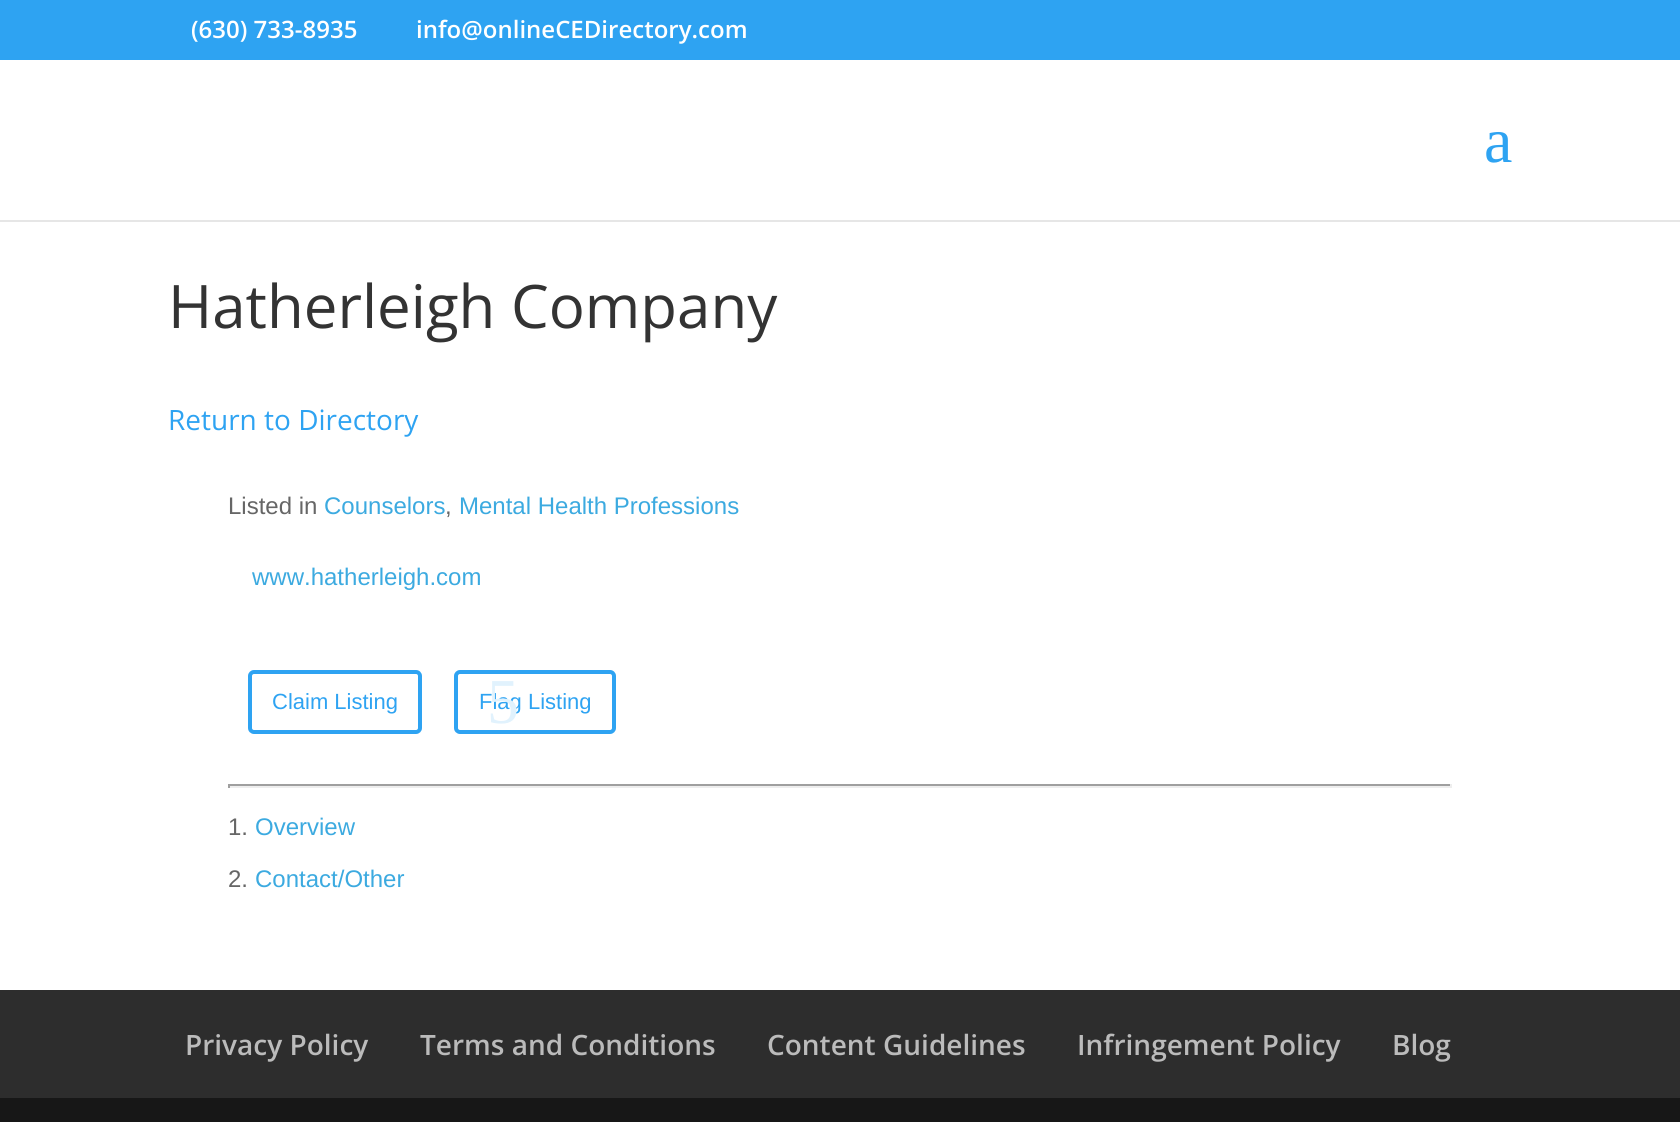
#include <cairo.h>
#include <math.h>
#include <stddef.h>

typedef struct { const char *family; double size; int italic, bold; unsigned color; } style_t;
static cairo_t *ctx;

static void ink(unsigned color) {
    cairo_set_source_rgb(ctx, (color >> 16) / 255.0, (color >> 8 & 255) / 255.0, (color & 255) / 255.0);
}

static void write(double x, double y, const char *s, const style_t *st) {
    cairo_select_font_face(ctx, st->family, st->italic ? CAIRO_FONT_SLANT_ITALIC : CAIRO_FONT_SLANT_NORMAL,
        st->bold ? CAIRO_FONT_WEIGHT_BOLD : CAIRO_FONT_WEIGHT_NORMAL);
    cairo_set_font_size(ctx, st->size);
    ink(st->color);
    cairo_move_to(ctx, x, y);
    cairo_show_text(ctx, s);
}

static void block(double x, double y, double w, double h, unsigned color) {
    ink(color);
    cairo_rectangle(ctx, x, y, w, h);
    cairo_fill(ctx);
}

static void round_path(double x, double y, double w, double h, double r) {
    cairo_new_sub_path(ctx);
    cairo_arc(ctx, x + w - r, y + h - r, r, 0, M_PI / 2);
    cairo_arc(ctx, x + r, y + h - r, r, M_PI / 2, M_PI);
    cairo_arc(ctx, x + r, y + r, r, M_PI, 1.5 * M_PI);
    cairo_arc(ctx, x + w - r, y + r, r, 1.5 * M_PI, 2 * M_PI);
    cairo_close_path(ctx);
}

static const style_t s1 = {"Open Sans SemiBold", 24, 0, 0, 0xffffff};
static const style_t s2 = {"Liberation Serif", 64, 0, 0, 0x2ea3f2};
static const style_t s3 = {"Open Sans", 60, 0, 0, 0x333333};
static const style_t s4 = {"Open Sans", 28, 0, 0, 0x2ea3f2};
static const style_t s5 = {"Liberation Sans", 24, 0, 0, 0x666666};
static const style_t s6 = {"Liberation Sans", 24, 0, 0, 0x3caae0};
static const style_t s7 = {"Liberation Sans", 22, 0, 0, 0x2ea3f2};
static const style_t s8 = {"Liberation Serif", 64, 0, 0, 0xe1f2fd};
static const style_t s9 = {"Open Sans SemiBold", 28, 0, 0, 0xbbbbbb};

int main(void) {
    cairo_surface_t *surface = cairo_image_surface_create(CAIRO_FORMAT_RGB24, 1680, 1122);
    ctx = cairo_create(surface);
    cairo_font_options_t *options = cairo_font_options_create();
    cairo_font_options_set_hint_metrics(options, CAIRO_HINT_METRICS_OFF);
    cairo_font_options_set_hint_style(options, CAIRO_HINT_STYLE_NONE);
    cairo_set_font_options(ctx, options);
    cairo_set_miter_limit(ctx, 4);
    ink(0xffffff);
    cairo_paint(ctx);
    block(0, 0, 1680, 60, 0x2ea3f2);
    write(191, 38, "(630) 733-8935", &s1);
    write(416, 38, "info@onlineCEDirectory.com", &s1);
    block(0, 220, 1680, 2, 0xe6e6e6);
    write(1484, 162, "a", &s2);
    write(168, 328, "Hatherleigh Company", &s3);
    write(168, 430, "Return to Directory", &s4);
    write(228, 514, "Listed in", &s5);
    write(324, 514, "Counselors", &s6);
    write(445, 514, ",", &s5);
    write(459, 514, "Mental Health Professions", &s6);
    write(252, 585, "www.hatherleigh.com", &s6);
    round_path(250, 672, 170, 60, 4);
    ink(0x2ea3f2);
    cairo_set_line_width(ctx, 4);
    cairo_stroke(ctx);
    write(272, 709, "Claim Listing", &s7);
    round_path(456, 672, 158, 60, 4);
    cairo_stroke(ctx);
    write(479, 709, "Flag Listing", &s7);
    write(487, 723, "5", &s8);
    block(228, 784, 1224, 2, 0x9f9f9f);
    block(1450, 784, 2, 4, 0xeeeeee);
    block(228, 786, 1224, 2, 0xeeeeee);
    block(228, 784, 2, 4, 0x9f9f9f);
    write(228, 835, "1.", &s5);
    write(255, 835, "Overview", &s6);
    write(228, 887, "2.", &s5);
    write(255, 887, "Contact/Other", &s6);
    block(0, 990, 1680, 108, 0x2d2d2d);
    write(185, 1055, "Privacy Policy", &s9);
    write(420, 1055, "Terms and Conditions", &s9);
    write(767, 1055, "Content Guidelines", &s9);
    write(1077, 1055, "Infringement Policy", &s9);
    write(1392, 1055, "Blog", &s9);
    block(0, 1098, 1680, 24, 0x171717);
    cairo_surface_write_to_png(surface, "screenshot.png");
    cairo_font_options_destroy(options);
    cairo_destroy(ctx);
    cairo_surface_destroy(surface);
    return 0;
}
